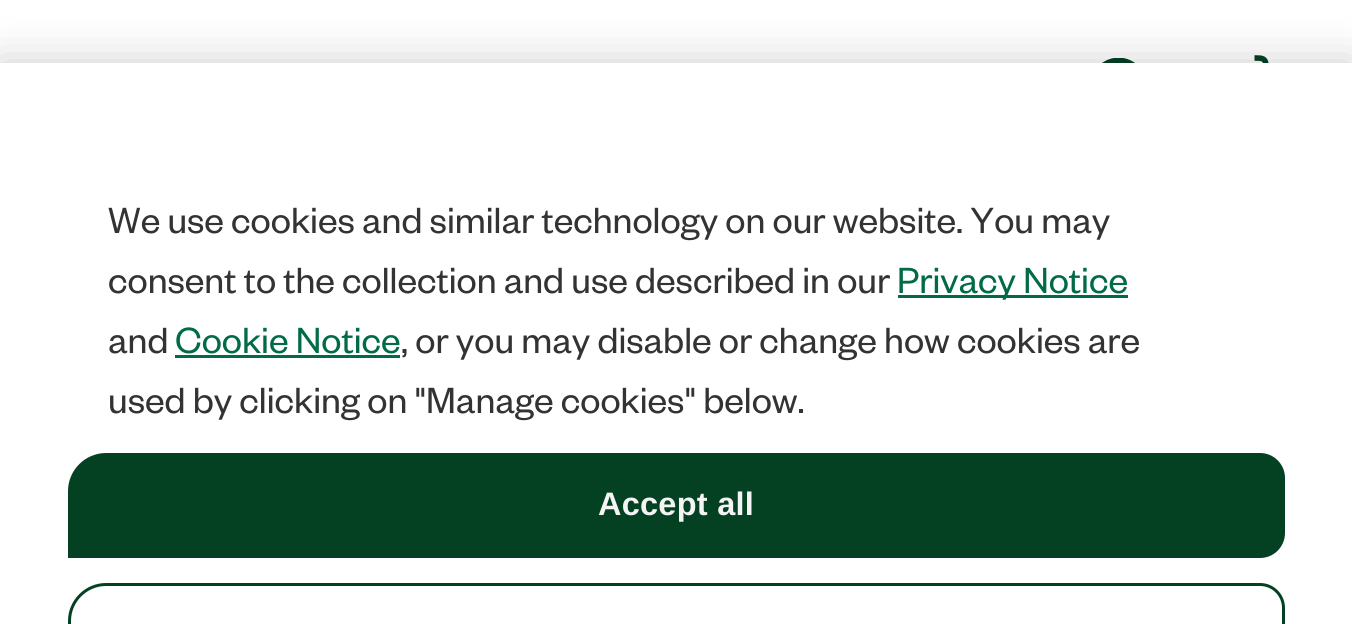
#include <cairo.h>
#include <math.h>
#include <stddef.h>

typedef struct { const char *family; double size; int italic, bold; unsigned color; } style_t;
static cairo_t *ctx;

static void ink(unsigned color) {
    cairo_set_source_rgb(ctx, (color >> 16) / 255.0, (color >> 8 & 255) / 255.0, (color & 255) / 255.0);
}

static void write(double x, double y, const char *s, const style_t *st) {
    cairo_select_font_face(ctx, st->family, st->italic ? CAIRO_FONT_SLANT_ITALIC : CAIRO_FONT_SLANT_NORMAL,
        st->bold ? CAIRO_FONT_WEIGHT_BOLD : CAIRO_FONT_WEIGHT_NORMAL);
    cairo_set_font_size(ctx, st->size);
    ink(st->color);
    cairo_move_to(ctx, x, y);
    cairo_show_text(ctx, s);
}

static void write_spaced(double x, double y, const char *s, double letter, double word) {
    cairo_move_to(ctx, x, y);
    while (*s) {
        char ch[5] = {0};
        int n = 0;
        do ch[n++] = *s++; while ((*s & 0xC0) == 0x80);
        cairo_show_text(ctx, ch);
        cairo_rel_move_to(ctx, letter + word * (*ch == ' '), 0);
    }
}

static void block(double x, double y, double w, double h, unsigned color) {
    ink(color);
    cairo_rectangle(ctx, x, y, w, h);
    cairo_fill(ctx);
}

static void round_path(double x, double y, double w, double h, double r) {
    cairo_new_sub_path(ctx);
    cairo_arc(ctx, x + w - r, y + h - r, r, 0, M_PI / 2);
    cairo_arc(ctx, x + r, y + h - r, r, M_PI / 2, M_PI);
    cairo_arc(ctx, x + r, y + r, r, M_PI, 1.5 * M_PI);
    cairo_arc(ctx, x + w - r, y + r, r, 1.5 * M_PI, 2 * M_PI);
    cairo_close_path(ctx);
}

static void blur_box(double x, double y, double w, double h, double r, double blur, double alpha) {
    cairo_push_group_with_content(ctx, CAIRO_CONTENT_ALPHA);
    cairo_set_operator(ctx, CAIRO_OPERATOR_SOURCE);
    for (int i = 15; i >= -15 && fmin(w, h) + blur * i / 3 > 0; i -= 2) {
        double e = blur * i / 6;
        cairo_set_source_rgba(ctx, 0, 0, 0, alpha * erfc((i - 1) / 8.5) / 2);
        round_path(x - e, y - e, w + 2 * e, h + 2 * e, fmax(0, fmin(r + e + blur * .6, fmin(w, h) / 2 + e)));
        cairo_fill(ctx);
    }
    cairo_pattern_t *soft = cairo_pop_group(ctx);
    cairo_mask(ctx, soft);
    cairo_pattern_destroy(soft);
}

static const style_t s1 = {"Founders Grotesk", 40, 0, 0, 0x333333};
static const style_t s2 = {"Founders Grotesk", 40, 0, 0, 0x006b46};

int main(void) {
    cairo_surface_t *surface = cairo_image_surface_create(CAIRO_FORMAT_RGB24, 1352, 624);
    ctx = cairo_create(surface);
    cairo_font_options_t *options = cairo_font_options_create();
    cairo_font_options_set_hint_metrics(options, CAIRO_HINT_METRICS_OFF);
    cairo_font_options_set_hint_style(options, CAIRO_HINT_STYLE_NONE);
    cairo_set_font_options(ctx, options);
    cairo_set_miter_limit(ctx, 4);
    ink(0xffffff);
    cairo_paint(ctx);
    cairo_save(ctx);
    cairo_rectangle(ctx, 1088, 58, 72, 67);
    cairo_clip(ctx);
    cairo_arc(ctx, 1118.5, 85.5, 25, 0, 2 * M_PI);
    ink(0x044123);
    cairo_set_line_width(ctx, 5.8);
    cairo_stroke(ctx);
    cairo_restore(ctx);
    cairo_new_path(ctx);
    cairo_move_to(ctx, 1266, 98);
    cairo_line_to(ctx, 1266, 103);
    cairo_curve_to(ctx, 1266, 106.5, 1268.5, 109, 1271.5, 109);
    cairo_line_to(ctx, 1306, 109);
    cairo_move_to(ctx, 1254.5, 58);
    cairo_curve_to(ctx, 1262.5, 58, 1266, 58, 1266, 66.5);
    ink(0x044123);
    cairo_set_line_width(ctx, 5.6);
    cairo_stroke(ctx);
    ink(0x000000);
    blur_box(0, 63, 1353, 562, 0, 22.5, 0.2);
    block(0, 63, 1352, 561, 0xffffff);
    write(108, 233, "We use cookies and similar technology on our website. You may", &s1);
    write(108, 293, "consent to the collection and use described in our", &s1);
    block(898, 295, 230, 3, 0x006b46);
    write(897, 293, "Privacy Notice", &s2);
    write(108, 353, "and", &s1);
    write(175, 353, "Cookie Notice", &s2);
    block(175, 355, 225, 3, 0x006b46);
    write(401, 353, ", or you may disable or change how cookies are", &s1);
    write(108, 413, "used by clicking on \"Manage cookies\" below.", &s1);
    ink(0x044123);
    cairo_new_path(ctx);
    cairo_move_to(ctx, 106, 454.5);
    cairo_line_to(ctx, 1260, 454.5);
    cairo_curve_to(ctx, 1273, 454.5, 1283.5, 465, 1283.5, 478);
    cairo_line_to(ctx, 1283.5, 533);
    cairo_curve_to(ctx, 1283.5, 546, 1273, 556.5, 1260, 556.5);
    cairo_line_to(ctx, 69.5, 556.5);
    cairo_line_to(ctx, 69.5, 491);
    cairo_curve_to(ctx, 69.5, 471, 86, 454.5, 106, 454.5);
    cairo_close_path(ctx);
    cairo_fill_preserve(ctx);
    cairo_set_line_width(ctx, 3);
    cairo_stroke(ctx);
    cairo_select_font_face(ctx, "Liberation Sans", CAIRO_FONT_SLANT_NORMAL, CAIRO_FONT_WEIGHT_BOLD);
    cairo_set_font_size(ctx, 32.5);
    ink(0xf4f4f4);
    write_spaced(598, 515, "Accept all", 0.25, 0);
    cairo_new_path(ctx);
    cairo_move_to(ctx, 106, 584.5);
    cairo_line_to(ctx, 1260, 584.5);
    cairo_curve_to(ctx, 1273, 584.5, 1283.5, 595, 1283.5, 608);
    cairo_line_to(ctx, 1283.5, 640);
    cairo_curve_to(ctx, 1283.5, 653, 1273, 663.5, 1260, 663.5);
    cairo_line_to(ctx, 69.5, 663.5);
    cairo_line_to(ctx, 69.5, 621);
    cairo_curve_to(ctx, 69.5, 601, 86, 584.5, 106, 584.5);
    cairo_close_path(ctx);
    ink(0x044123);
    cairo_stroke(ctx);
    cairo_surface_write_to_png(surface, "screenshot.png");
    cairo_font_options_destroy(options);
    cairo_destroy(ctx);
    cairo_surface_destroy(surface);
    return 0;
}
